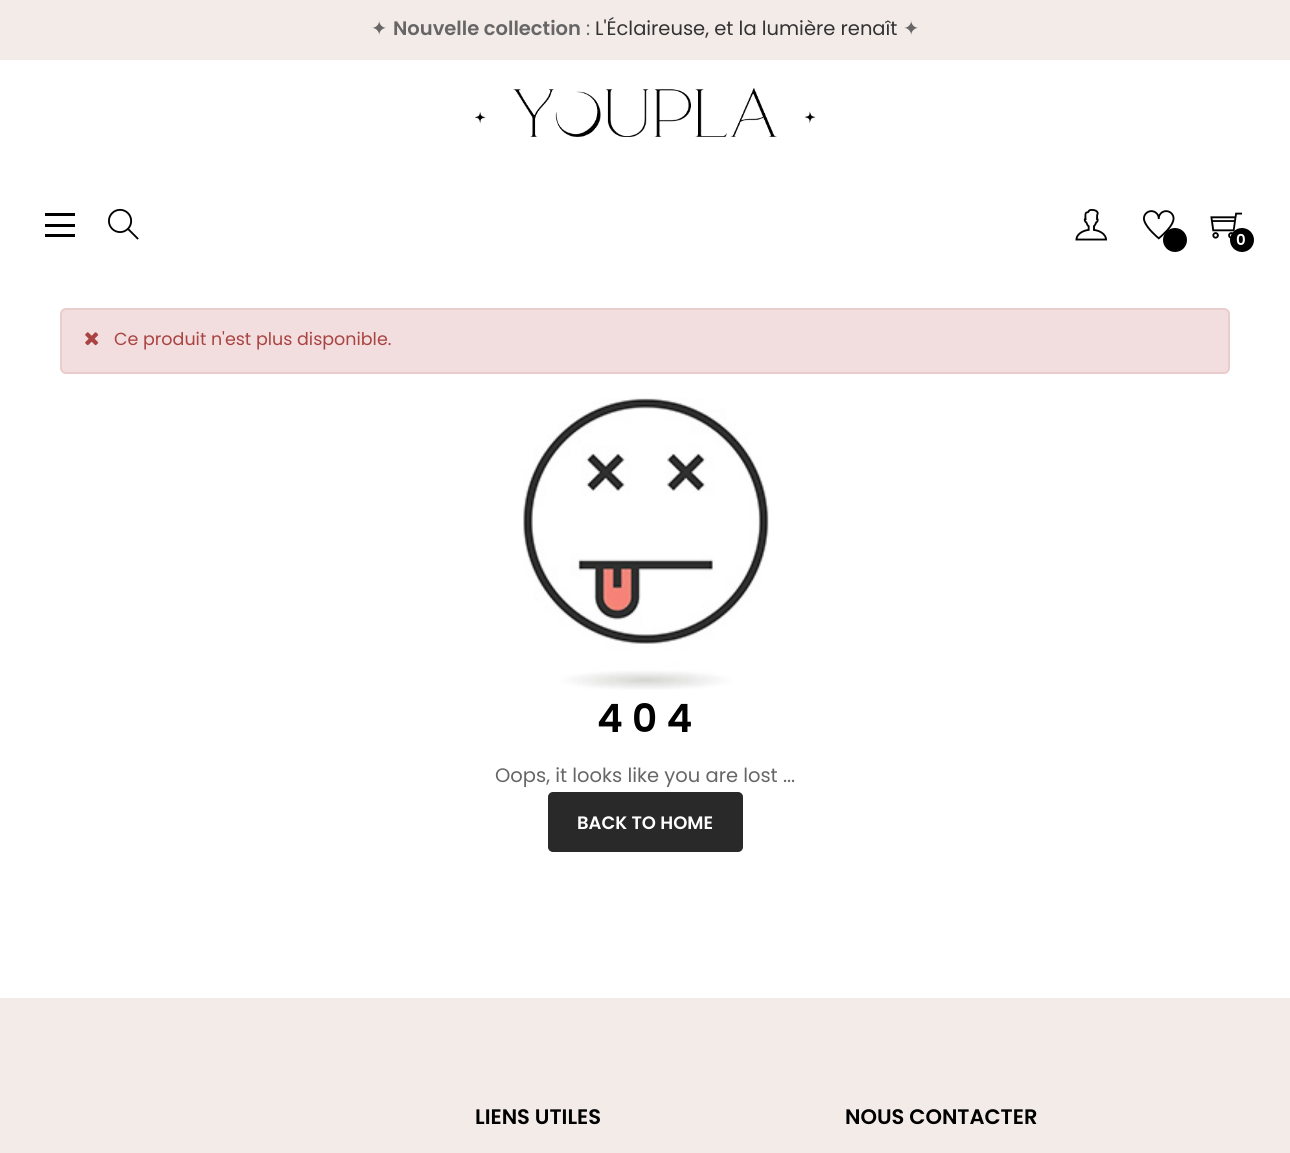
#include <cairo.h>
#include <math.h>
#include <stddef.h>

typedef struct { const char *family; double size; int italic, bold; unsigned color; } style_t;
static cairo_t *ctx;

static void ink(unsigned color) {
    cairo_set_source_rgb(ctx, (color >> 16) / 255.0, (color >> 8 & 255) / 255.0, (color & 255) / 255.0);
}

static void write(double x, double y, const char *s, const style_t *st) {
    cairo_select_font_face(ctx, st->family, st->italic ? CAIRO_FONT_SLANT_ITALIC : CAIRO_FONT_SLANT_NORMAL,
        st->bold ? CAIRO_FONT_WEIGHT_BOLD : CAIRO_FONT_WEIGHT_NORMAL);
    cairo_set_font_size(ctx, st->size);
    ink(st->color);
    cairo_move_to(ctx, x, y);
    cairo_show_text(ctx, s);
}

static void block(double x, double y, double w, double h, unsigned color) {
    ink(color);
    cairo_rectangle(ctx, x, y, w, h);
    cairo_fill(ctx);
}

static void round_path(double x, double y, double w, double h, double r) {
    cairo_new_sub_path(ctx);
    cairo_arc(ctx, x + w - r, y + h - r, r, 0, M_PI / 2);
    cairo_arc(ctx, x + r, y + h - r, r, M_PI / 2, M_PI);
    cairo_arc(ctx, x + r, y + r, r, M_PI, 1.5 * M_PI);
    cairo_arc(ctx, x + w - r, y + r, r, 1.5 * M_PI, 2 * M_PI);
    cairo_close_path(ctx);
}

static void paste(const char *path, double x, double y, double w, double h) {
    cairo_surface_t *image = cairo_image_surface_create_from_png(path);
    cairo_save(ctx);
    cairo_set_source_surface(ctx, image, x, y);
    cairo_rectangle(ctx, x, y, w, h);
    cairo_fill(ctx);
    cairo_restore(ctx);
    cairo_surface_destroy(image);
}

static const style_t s1 = {"DejaVu Sans", 19.5, 0, 0, 0x666666};
static const style_t s2 = {"Poppins SemiBold", 19.5, 0, 0, 0x666666};
static const style_t s3 = {"Poppins", 19.5, 0, 0, 0x666666};
static const style_t s4 = {"Poppins", 19.5, 0, 0, 0x333333};
static const style_t s5 = {"Poppins SemiBold", 15, 0, 0, 0xffffff};
static const style_t s6 = {"Poppins", 17.5, 0, 0, 0xa94442};
static const style_t s7 = {"Poppins SemiBold", 39, 0, 0, 0x000000};
static const style_t s8 = {"Poppins SemiBold", 18, 0, 0, 0xffffff};
static const style_t s9 = {"Poppins SemiBold", 21, 0, 0, 0x000000};

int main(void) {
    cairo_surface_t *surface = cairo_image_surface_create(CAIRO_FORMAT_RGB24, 1290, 1153);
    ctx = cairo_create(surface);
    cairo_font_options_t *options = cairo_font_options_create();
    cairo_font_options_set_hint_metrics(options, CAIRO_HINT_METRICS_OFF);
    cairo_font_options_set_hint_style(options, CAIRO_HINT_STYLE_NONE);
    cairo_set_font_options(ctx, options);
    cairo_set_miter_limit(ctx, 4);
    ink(0xffffff);
    cairo_paint(ctx);
    block(0, 0, 1290, 60, 0xf3ebe8);
    write(371, 35, "✦", &s1);
    write(393, 35, "Nouvelle collection", &s2);
    write(586, 35, ":", &s3);
    write(595, 35, "L'Éclaireuse, et la lumière renaît", &s4);
    write(903, 35, "✦", &s1);
    paste("pic1.png", 474, 88, 342, 49);
    block(45, 213, 30, 3, 0x000000);
    block(45, 234, 30, 3, 0x000000);
    block(45, 224, 30, 3, 0x000000);
    paste("pic2.png", 108, 208, 31, 32);
    paste("pic3.png", 1075, 209, 32, 32);
    paste("pic4.png", 1143, 210, 32, 30);
    cairo_arc(ctx, 1175, 240, 12, 0, 2 * M_PI);
    cairo_fill(ctx);
    paste("pic5.png", 1210, 212, 32, 27);
    cairo_arc(ctx, 1242, 240, 12, 0, 2 * M_PI);
    cairo_fill(ctx);
    write(1236, 245, "0", &s5);
    ink(0xf2dede);
    round_path(61, 309, 1168, 64, 5);
    cairo_fill_preserve(ctx);
    ink(0xebcccc);
    cairo_stroke(ctx);
    paste("pic6.png", 85, 332, 14, 14);
    write(114, 345, "Ce produit n'est plus disponible.", &s6);
    paste("pic7.png", 523, 398, 246, 292);
    write(597, 732, "4 0 4", &s7);
    write(495, 782, "Oops, it looks like you are lost ...", &s3);
    ink(0x292929);
    round_path(548, 792, 195, 60, 5);
    cairo_fill(ctx);
    write(577, 829, "BACK TO HOME", &s8);
    block(0, 998, 1290, 155, 0xf3ebe8);
    write(475, 1124, "LIENS UTILES", &s9);
    write(845, 1124, "NOUS CONTACTER", &s9);
    cairo_surface_write_to_png(surface, "screenshot.png");
    cairo_font_options_destroy(options);
    cairo_destroy(ctx);
    cairo_surface_destroy(surface);
    return 0;
}
